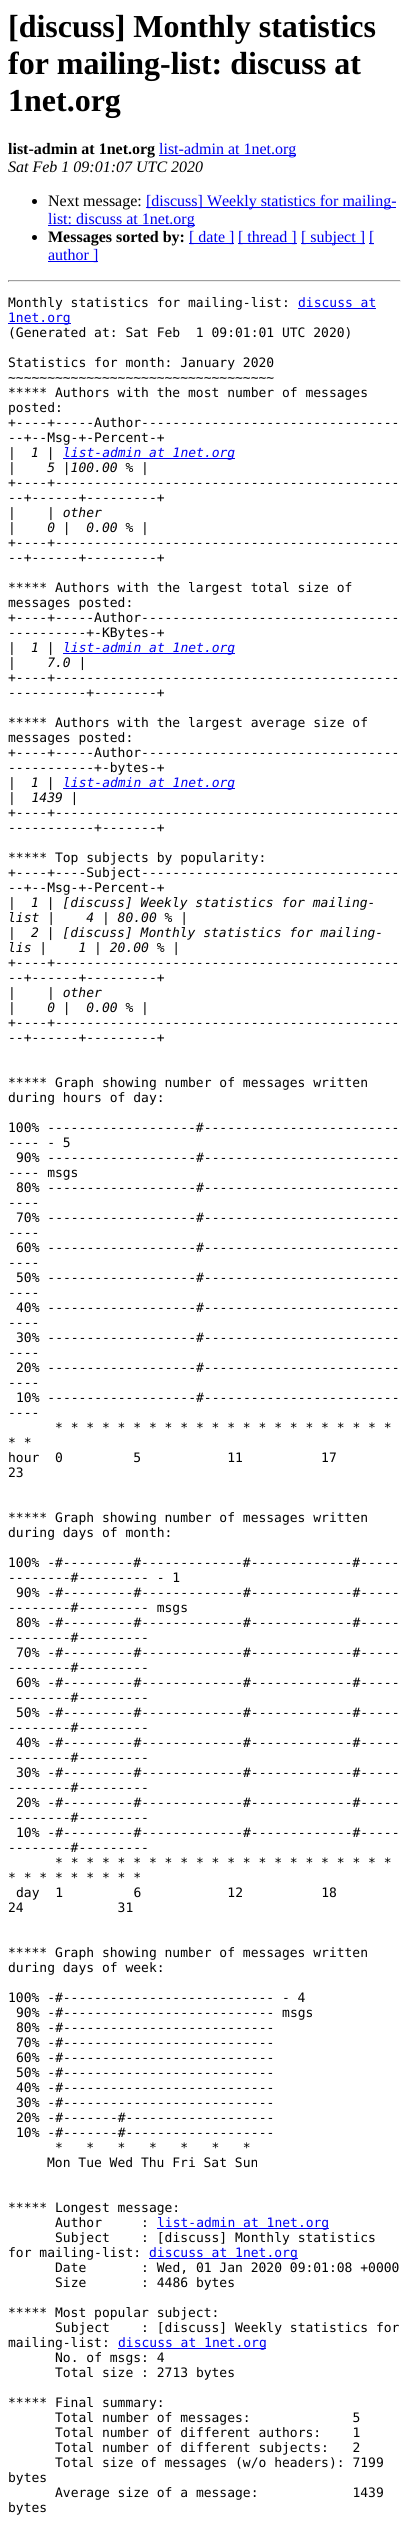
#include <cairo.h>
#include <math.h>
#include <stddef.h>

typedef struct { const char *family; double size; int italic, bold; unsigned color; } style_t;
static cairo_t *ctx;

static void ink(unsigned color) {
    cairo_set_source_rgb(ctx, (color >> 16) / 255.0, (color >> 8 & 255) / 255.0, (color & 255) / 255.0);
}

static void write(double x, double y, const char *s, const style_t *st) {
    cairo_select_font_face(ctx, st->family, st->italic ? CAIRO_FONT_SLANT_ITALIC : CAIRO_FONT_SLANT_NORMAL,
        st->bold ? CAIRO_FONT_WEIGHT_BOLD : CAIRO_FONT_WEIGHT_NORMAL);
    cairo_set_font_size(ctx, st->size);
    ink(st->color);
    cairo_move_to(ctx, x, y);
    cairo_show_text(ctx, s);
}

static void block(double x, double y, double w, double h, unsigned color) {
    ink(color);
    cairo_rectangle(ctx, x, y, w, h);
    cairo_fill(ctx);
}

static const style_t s1 = {"Liberation Serif", 32, 0, 1, 0x000000};
static const style_t s2 = {"Liberation Serif", 16, 0, 1, 0x000000};
static const style_t s3 = {"Liberation Serif", 16, 0, 0, 0x0000ee};
static const style_t s4 = {"Liberation Serif", 16, 1, 0, 0x000000};
static const style_t s5 = {"Liberation Serif", 16, 0, 0, 0x000000};
static const style_t s6 = {"DejaVu Sans Mono", 13, 0, 0, 0x000000};
static const style_t s7 = {"DejaVu Sans Mono", 13, 0, 0, 0x0000ee};
static const style_t s8 = {"DejaVu Sans Mono", 13, 1, 0, 0x000000};
static const style_t s9 = {"DejaVu Sans Mono", 13, 1, 0, 0x0000ee};

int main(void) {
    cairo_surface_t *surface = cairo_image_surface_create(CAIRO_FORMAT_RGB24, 409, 2529);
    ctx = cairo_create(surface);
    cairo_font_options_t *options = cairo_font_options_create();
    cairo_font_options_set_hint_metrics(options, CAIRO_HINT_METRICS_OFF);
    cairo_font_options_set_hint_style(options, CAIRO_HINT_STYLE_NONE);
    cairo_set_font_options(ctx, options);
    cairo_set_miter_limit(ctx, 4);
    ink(0xffffff);
    cairo_paint(ctx);
    write(8, 37, "[discuss] Monthly statistics", &s1);
    write(8, 74, "for mailing-list: discuss at", &s1);
    write(8, 111, "1net.org", &s1);
    write(8, 154, "list-admin at 1net.org", &s2);
    block(159, 155, 137, 1, 0x0000ee);
    write(159, 154, "list-admin at 1net.org", &s3);
    write(8, 172, "Sat Feb 1 09:01:07 UTC 2020", &s4);
    cairo_new_path(ctx);
    cairo_arc(ctx, 34.5, 201.5, 2.5, 0, 2 * M_PI);
    cairo_fill(ctx);
    write(48, 206, "Next message:", &s5);
    block(146, 207, 250, 1, 0x0000ee);
    write(146, 206, "[discuss] Weekly statistics for mailing-", &s3);
    block(48, 225, 147, 1, 0x0000ee);
    write(48, 224, "list: discuss at 1net.org", &s3);
    ink(0x000000);
    cairo_new_path(ctx);
    cairo_arc(ctx, 34.5, 237.5, 2.5, 0, 2 * M_PI);
    cairo_fill(ctx);
    write(48, 242, "Messages sorted by:", &s2);
    block(189, 243, 45, 1, 0x0000ee);
    write(189, 242, "[ date ]", &s3);
    block(238, 243, 59, 1, 0x0000ee);
    write(238, 242, "[ thread ]", &s3);
    block(301, 243, 64, 1, 0x0000ee);
    write(301, 242, "[ subject ]", &s3);
    block(369, 243, 5, 1, 0x0000ee);
    write(369, 242, "[", &s3);
    block(48, 261, 50, 1, 0x0000ee);
    write(48, 260, "author ]", &s3);
    block(8, 280, 393, 1, 0x9f9f9f);
    block(400, 280, 1, 2, 0xeeeeee);
    block(8, 281, 393, 1, 0xeeeeee);
    block(8, 280, 1, 2, 0x9f9f9f);
    write(8, 307, "Monthly statistics for mailing-list:", &s6);
    write(298, 307, "discuss at", &s7);
    block(298, 308, 78, 1, 0x0000ee);
    block(8, 323, 63, 1, 0x0000ee);
    write(8, 322, "1net.org", &s7);
    write(8, 337, "(Generated at: Sat Feb  1 09:01:01 UTC 2020)", &s6);
    write(8, 367, "Statistics for month: January 2020", &s6);
    write(8, 382, "~~~~~~~~~~~~~~~~~~~~~~~~~~~~~~~~~~", &s6);
    write(8, 397, "***** Authors with the most number of messages", &s6);
    write(8, 412, "posted:", &s6);
    write(8, 427, "+----+-----Author---------------------------------", &s6);
    write(8, 442, "--+--Msg-+-Percent-+", &s6);
    write(8, 457, "|", &s6);
    write(31, 457, "1 |", &s8);
    block(63, 458, 172, 1, 0x0000ee);
    write(63, 457, "list-admin at 1net.org", &s9);
    write(8, 472, "|    5 |100.00 % |", &s8);
    write(8, 487, "+----+--------------------------------------------", &s6);
    write(8, 502, "--+------+---------+", &s6);
    write(8, 517, "|", &s6);
    write(47, 517, "| other", &s8);
    write(8, 532, "|    0 |  0.00 % |", &s8);
    write(8, 547, "+----+--------------------------------------------", &s6);
    write(8, 562, "--+------+---------+", &s6);
    write(8, 592, "***** Authors with the largest total size of", &s6);
    write(8, 607, "messages posted:", &s6);
    write(8, 622, "+----+-----Author---------------------------------", &s6);
    write(8, 637, "----------+-KBytes-+", &s6);
    write(8, 652, "|", &s6);
    write(31, 652, "1 |", &s8);
    block(63, 653, 172, 1, 0x0000ee);
    write(63, 652, "list-admin at 1net.org", &s9);
    write(8, 667, "|    7.0 |", &s8);
    write(8, 682, "+----+--------------------------------------------", &s6);
    write(8, 697, "----------+--------+", &s6);
    write(8, 727, "***** Authors with the largest average size of", &s6);
    write(8, 742, "messages posted:", &s6);
    write(8, 757, "+----+-----Author---------------------------------", &s6);
    write(8, 772, "-----------+-bytes-+", &s6);
    write(8, 787, "|", &s6);
    write(31, 787, "1 |", &s8);
    block(63, 788, 172, 1, 0x0000ee);
    write(63, 787, "list-admin at 1net.org", &s9);
    write(8, 802, "|  1439 |", &s8);
    write(8, 817, "+----+--------------------------------------------", &s6);
    write(8, 832, "-----------+-------+", &s6);
    write(8, 862, "***** Top subjects by popularity:", &s6);
    write(8, 877, "+----+----Subject---------------------------------", &s6);
    write(8, 892, "--+--Msg-+-Percent-+", &s6);
    write(8, 907, "|", &s6);
    write(31, 907, "1 | [discuss] Weekly statistics for mailing-", &s8);
    write(8, 922, "list |    4 | 80.00 % |", &s8);
    write(8, 937, "|", &s6);
    write(31, 937, "2 | [discuss] Monthly statistics for mailing-", &s8);
    write(8, 952, "lis |    1 | 20.00 % |", &s8);
    write(8, 967, "+----+--------------------------------------------", &s6);
    write(8, 982, "--+------+---------+", &s6);
    write(8, 997, "|", &s6);
    write(47, 997, "| other", &s8);
    write(8, 1012, "|    0 |  0.00 % |", &s8);
    write(8, 1027, "+----+--------------------------------------------", &s6);
    write(8, 1042, "--+------+---------+", &s6);
    write(8, 1087, "***** Graph showing number of messages written", &s6);
    write(8, 1102, "during hours of day:", &s6);
    write(8, 1132, "100% -------------------#-------------------------", &s6);
    write(8, 1147, "---- - 5", &s6);
    write(16, 1162, "90% -------------------#-------------------------", &s6);
    write(8, 1177, "---- msgs", &s6);
    write(16, 1192, "80% -------------------#-------------------------", &s6);
    write(8, 1207, "----", &s6);
    write(16, 1222, "70% -------------------#-------------------------", &s6);
    write(8, 1237, "----", &s6);
    write(16, 1252, "60% -------------------#-------------------------", &s6);
    write(8, 1267, "----", &s6);
    write(16, 1282, "50% -------------------#-------------------------", &s6);
    write(8, 1297, "----", &s6);
    write(16, 1312, "40% -------------------#-------------------------", &s6);
    write(8, 1327, "----", &s6);
    write(16, 1342, "30% -------------------#-------------------------", &s6);
    write(8, 1357, "----", &s6);
    write(16, 1372, "20% -------------------#-------------------------", &s6);
    write(8, 1387, "----", &s6);
    write(16, 1402, "10% -------------------#-------------------------", &s6);
    write(8, 1417, "----", &s6);
    write(55, 1432, "* * * * * * * * * * * * * * * * * * * * * *", &s6);
    write(8, 1447, "* *", &s6);
    write(8, 1462, "hour  0         5           11          17", &s6);
    write(8, 1477, "23", &s6);
    write(8, 1522, "***** Graph showing number of messages written", &s6);
    write(8, 1537, "during days of month:", &s6);
    write(8, 1567, "100% -#---------#-------------#-------------#-----", &s6);
    write(8, 1582, "--------#--------- - 1", &s6);
    write(16, 1597, "90% -#---------#-------------#-------------#-----", &s6);
    write(8, 1612, "--------#--------- msgs", &s6);
    write(16, 1627, "80% -#---------#-------------#-------------#-----", &s6);
    write(8, 1642, "--------#---------", &s6);
    write(16, 1657, "70% -#---------#-------------#-------------#-----", &s6);
    write(8, 1672, "--------#---------", &s6);
    write(16, 1687, "60% -#---------#-------------#-------------#-----", &s6);
    write(8, 1702, "--------#---------", &s6);
    write(16, 1717, "50% -#---------#-------------#-------------#-----", &s6);
    write(8, 1732, "--------#---------", &s6);
    write(16, 1747, "40% -#---------#-------------#-------------#-----", &s6);
    write(8, 1762, "--------#---------", &s6);
    write(16, 1777, "30% -#---------#-------------#-------------#-----", &s6);
    write(8, 1792, "--------#---------", &s6);
    write(16, 1807, "20% -#---------#-------------#-------------#-----", &s6);
    write(8, 1822, "--------#---------", &s6);
    write(16, 1837, "10% -#---------#-------------#-------------#-----", &s6);
    write(8, 1852, "--------#---------", &s6);
    write(55, 1867, "* * * * * * * * * * * * * * * * * * * * * *", &s6);
    write(8, 1882, "* * * * * * * * *", &s6);
    write(16, 1897, "day  1         6           12          18", &s6);
    write(8, 1912, "24            31", &s6);
    write(8, 1957, "***** Graph showing number of messages written", &s6);
    write(8, 1972, "during days of week:", &s6);
    write(8, 2002, "100% -#--------------------------- - 4", &s6);
    write(16, 2017, "90% -#--------------------------- msgs", &s6);
    write(16, 2032, "80% -#---------------------------", &s6);
    write(16, 2047, "70% -#---------------------------", &s6);
    write(16, 2062, "60% -#---------------------------", &s6);
    write(16, 2077, "50% -#---------------------------", &s6);
    write(16, 2092, "40% -#---------------------------", &s6);
    write(16, 2107, "30% -#---------------------------", &s6);
    write(16, 2122, "20% -#-------#-------------------", &s6);
    write(16, 2137, "10% -#-------#-------------------", &s6);
    write(55, 2152, "*   *   *   *   *   *   *", &s6);
    write(47, 2167, "Mon Tue Wed Thu Fri Sat Sun", &s6);
    write(8, 2212, "***** Longest message:", &s6);
    write(55, 2227, "Author     :", &s6);
    block(157, 2228, 172, 1, 0x0000ee);
    write(157, 2227, "list-admin at 1net.org", &s7);
    write(55, 2242, "Subject    : [discuss] Monthly statistics", &s6);
    write(8, 2257, "for mailing-list:", &s6);
    block(149, 2258, 149, 1, 0x0000ee);
    write(149, 2257, "discuss at 1net.org", &s7);
    write(55, 2272, "Date       : Wed, 01 Jan 2020 09:01:08 +0000", &s6);
    write(55, 2287, "Size       : 4486 bytes", &s6);
    write(8, 2317, "***** Most popular subject:", &s6);
    write(55, 2332, "Subject    : [discuss] Weekly statistics for", &s6);
    write(8, 2347, "mailing-list:", &s6);
    block(118, 2348, 148, 1, 0x0000ee);
    write(118, 2347, "discuss at 1net.org", &s7);
    write(55, 2362, "No. of msgs: 4", &s6);
    write(55, 2377, "Total size : 2713 bytes", &s6);
    write(8, 2407, "***** Final summary:", &s6);
    write(55, 2422, "Total number of messages:             5", &s6);
    write(55, 2437, "Total number of different authors:    1", &s6);
    write(55, 2452, "Total number of different subjects:   2", &s6);
    write(55, 2467, "Total size of messages (w/o headers): 7199", &s6);
    write(8, 2482, "bytes", &s6);
    write(55, 2497, "Average size of a message:            1439", &s6);
    write(8, 2512, "bytes", &s6);
    cairo_surface_write_to_png(surface, "screenshot.png");
    cairo_font_options_destroy(options);
    cairo_destroy(ctx);
    cairo_surface_destroy(surface);
    return 0;
}
